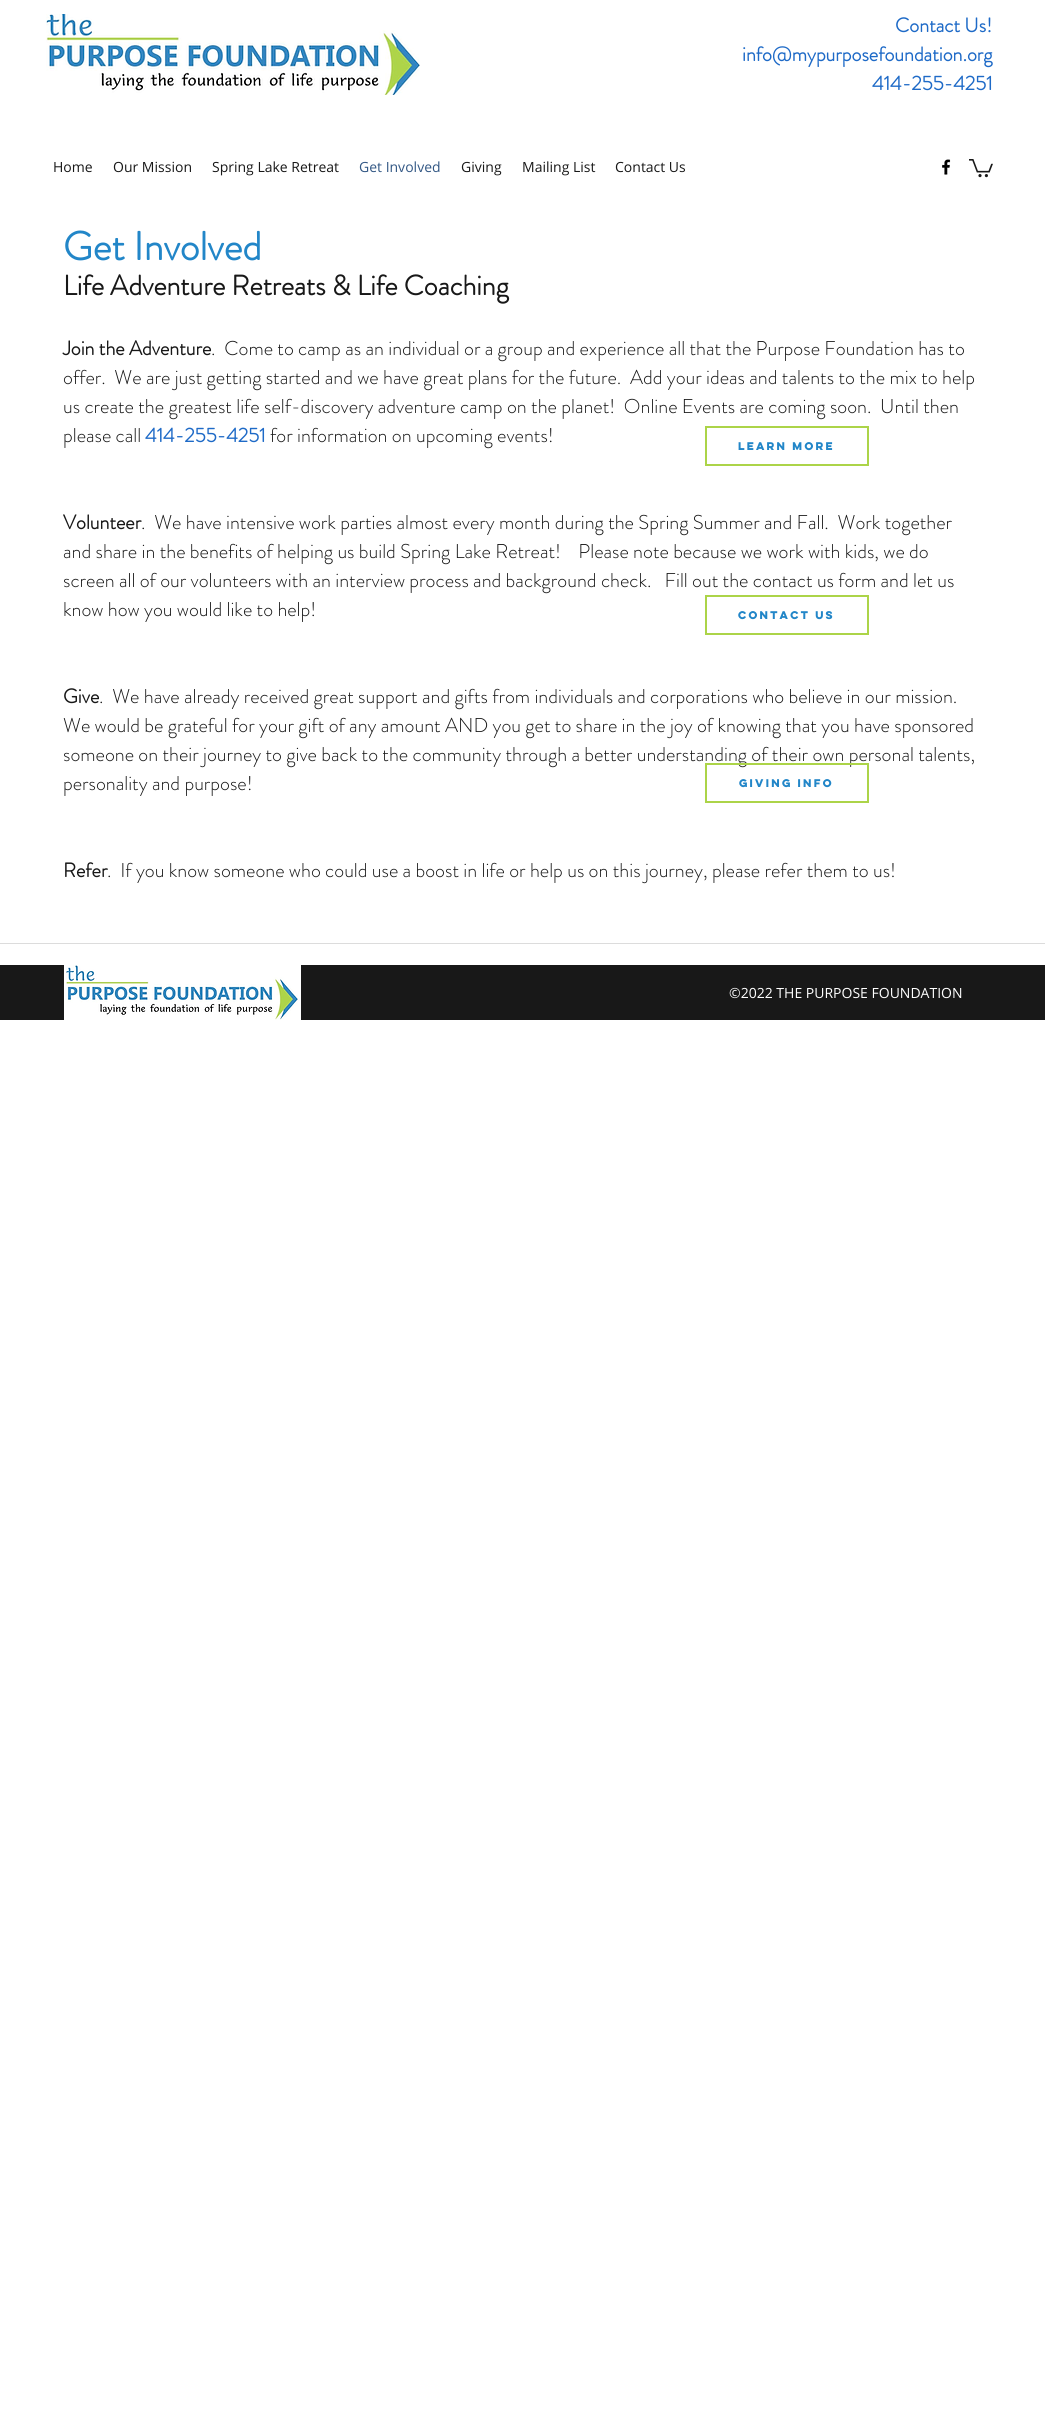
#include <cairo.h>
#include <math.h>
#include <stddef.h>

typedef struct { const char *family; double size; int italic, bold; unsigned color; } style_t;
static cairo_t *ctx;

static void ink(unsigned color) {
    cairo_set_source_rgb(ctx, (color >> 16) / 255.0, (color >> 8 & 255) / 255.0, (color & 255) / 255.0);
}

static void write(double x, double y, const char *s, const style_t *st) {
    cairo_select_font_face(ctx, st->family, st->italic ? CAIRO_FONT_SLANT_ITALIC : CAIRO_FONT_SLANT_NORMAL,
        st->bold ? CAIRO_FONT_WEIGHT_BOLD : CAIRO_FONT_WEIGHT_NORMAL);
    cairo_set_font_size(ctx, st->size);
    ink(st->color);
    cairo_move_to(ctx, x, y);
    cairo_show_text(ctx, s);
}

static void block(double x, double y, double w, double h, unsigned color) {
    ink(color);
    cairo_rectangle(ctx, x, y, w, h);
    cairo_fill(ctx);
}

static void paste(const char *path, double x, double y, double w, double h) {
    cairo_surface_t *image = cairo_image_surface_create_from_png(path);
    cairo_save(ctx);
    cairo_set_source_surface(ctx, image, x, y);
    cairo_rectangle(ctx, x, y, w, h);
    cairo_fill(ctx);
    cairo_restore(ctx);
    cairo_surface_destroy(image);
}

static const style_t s1 = {"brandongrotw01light", 20, 0, 1, 0x1e6ac7};
static const style_t s2 = {"Open Sans", 14, 0, 0, 0x181818};
static const style_t s3 = {"Open Sans", 14, 0, 0, 0x325784};
static const style_t s4 = {"brandongrotw01light", 40, 0, 1, 0x2286c8};
static const style_t s5 = {"brandongrotw01light", 28, 0, 1, 0x181818};
static const style_t s6 = {"brandongrotw01light", 20, 0, 1, 0x181818};
static const style_t s7 = {"brandongrotw01light Light", 20, 0, 0, 0x181818};
static const style_t s8 = {"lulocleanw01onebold", 10, 0, 1, 0x2286c8};
static const style_t s9 = {"Open Sans", 14, 0, 0, 0xffffff};

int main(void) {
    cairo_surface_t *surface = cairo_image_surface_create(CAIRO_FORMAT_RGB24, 1045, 2436);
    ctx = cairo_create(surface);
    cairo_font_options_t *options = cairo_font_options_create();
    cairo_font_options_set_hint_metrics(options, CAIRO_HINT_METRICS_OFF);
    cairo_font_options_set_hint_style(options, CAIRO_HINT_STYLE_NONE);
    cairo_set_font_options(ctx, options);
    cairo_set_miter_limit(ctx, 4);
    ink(0xffffff);
    cairo_paint(ctx);
    paste("pic1.png", 46, 14, 374, 81);
    write(895, 32, "Contact Us!", &s1);
    write(742, 61, "info@mypurposefoundation.org", &s1);
    write(872, 90, "414-255-4251", &s1);
    write(53, 172, "Home", &s2);
    write(113, 172, "Our Mission", &s2);
    write(212, 172, "Spring Lake Retreat", &s2);
    write(359, 172, "Get Involved", &s3);
    write(461, 172, "Giving", &s2);
    write(522, 172, "Mailing List", &s2);
    write(615, 172, "Contact Us", &s2);
    paste("pic2.png", 942, 159, 9, 16);
    paste("pic3.png", 969, 159, 24, 19);
    write(63, 260, "Get Involved", &s4);
    write(63, 295, "Life Adventure Retreats & Life Coaching", &s5);
    write(63, 355, "Join the Adventure", &s6);
    write(211, 355, ".  Come to camp as an individual or a group and experience all that the Purpose Foundation has to", &s7);
    write(63, 384, "offer.  We are just getting started and we have great plans for the future.  Add your ideas and talents to the mix to help", &s7);
    write(63, 413, "us create the greatest life self-discovery adventure camp on the planet!  Online Events are coming soon.  Until then", &s7);
    write(63, 442, "please call", &s7);
    write(145, 442, "414-255-4251", &s1);
    write(270, 442, "for information on upcoming events!", &s7);
    write(63, 529, "Volunteer", &s6);
    write(141, 529, ".  We have intensive work parties almost every month during the Spring Summer and Fall.  Work together", &s7);
    write(63, 558, "and share in the benefits of helping us build Spring Lake Retreat!    Please note because we work with kids, we do", &s7);
    write(63, 587, "screen all of our volunteers with an interview process and background check.   Fill out the contact us form and let us", &s7);
    write(63, 616, "know how you would like to help!", &s7);
    write(63, 703, "Give", &s6);
    write(99, 703, ".  We have already received great support and gifts from individuals and corporations who believe in our mission.", &s7);
    write(63, 732, "We would be grateful for your gift of any amount AND you get to share in the joy of knowing that you have sponsored", &s7);
    write(63, 761, "someone on their journey to give back to the community through a better understanding of their own personal talents,", &s7);
    write(63, 790, "personality and purpose!", &s7);
    write(63, 877, "Refer", &s6);
    write(107, 877, ".  If you know someone who could use a boost in life or help us on this journey, please refer them to us!", &s7);
    cairo_rectangle(ctx, 706, 427, 162, 38);
    ink(0xacd448);
    cairo_stroke(ctx);
    write(738, 450, "Learn more", &s8);
    cairo_rectangle(ctx, 706, 596, 162, 38);
    ink(0xacd448);
    cairo_stroke(ctx);
    write(738, 619, "Contact Us", &s8);
    cairo_rectangle(ctx, 706, 764, 162, 38);
    ink(0xacd448);
    cairo_stroke(ctx);
    write(739, 787, "Giving Info", &s8);
    block(0, 943, 1045, 1, 0xdcdcdc);
    block(0, 965, 1045, 55, 0x181818);
    paste("pic4.png", 64, 965, 237, 55);
    write(729, 998, "©2022 THE PURPOSE FOUNDATION", &s9);
    cairo_surface_write_to_png(surface, "screenshot.png");
    cairo_font_options_destroy(options);
    cairo_destroy(ctx);
    cairo_surface_destroy(surface);
    return 0;
}
